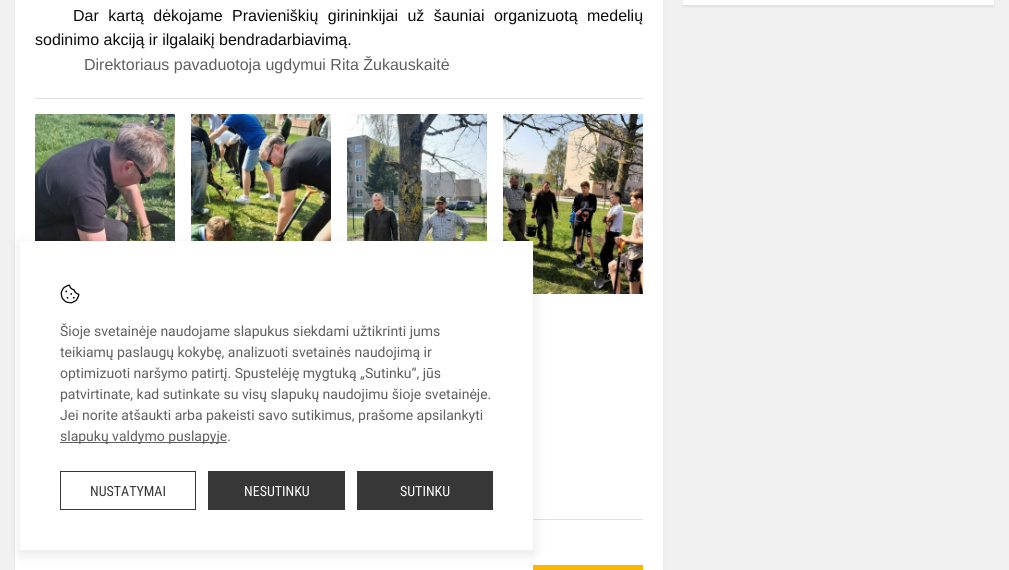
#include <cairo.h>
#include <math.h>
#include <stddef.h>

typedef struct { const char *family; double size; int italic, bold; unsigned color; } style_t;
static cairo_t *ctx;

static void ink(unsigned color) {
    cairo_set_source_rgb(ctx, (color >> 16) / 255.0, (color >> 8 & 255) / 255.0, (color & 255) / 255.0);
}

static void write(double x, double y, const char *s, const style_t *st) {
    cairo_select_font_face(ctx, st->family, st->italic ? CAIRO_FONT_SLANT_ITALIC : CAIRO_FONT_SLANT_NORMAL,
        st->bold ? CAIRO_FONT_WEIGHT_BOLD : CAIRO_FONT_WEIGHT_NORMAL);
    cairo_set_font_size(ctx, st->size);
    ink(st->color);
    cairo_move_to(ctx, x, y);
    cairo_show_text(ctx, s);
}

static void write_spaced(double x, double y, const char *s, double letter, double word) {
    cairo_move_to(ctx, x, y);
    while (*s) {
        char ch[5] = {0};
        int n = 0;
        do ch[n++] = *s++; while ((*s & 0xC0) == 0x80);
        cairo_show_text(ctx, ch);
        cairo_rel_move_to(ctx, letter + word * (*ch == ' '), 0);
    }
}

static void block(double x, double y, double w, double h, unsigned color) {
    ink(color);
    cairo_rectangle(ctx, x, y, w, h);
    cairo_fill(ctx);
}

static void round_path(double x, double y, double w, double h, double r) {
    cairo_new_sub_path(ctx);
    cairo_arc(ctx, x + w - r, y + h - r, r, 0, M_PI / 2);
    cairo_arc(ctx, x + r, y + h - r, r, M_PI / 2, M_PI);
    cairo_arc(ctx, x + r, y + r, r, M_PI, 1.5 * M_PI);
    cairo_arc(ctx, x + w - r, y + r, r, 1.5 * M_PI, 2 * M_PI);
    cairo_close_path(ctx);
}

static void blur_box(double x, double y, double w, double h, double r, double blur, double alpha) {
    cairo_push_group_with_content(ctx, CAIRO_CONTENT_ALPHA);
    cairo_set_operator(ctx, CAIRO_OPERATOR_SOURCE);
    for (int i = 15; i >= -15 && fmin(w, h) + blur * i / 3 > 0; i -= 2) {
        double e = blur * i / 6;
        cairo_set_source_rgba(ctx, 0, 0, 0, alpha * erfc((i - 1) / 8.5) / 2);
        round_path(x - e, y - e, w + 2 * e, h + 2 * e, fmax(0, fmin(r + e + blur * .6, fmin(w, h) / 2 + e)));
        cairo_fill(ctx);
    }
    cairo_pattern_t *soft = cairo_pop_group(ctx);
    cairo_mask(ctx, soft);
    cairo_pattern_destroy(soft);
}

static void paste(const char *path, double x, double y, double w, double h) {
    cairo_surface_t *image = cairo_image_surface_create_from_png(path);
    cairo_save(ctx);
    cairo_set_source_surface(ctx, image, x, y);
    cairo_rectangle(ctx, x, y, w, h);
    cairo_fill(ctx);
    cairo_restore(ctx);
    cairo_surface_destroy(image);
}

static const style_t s1 = {"Liberation Sans", 16, 0, 0, 0x0a0a0a};
static const style_t s2 = {"Liberation Sans", 16, 0, 0, 0x5f5f5f};
static const style_t s3 = {"Roboto", 14, 0, 0, 0x5f5f5f};
static const style_t s4 = {"Roboto Condensed", 14, 0, 0, 0x373737};
static const style_t s5 = {"Roboto Condensed", 14, 0, 0, 0xffffff};

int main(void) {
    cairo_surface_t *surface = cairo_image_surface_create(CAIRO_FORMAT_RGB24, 1009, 570);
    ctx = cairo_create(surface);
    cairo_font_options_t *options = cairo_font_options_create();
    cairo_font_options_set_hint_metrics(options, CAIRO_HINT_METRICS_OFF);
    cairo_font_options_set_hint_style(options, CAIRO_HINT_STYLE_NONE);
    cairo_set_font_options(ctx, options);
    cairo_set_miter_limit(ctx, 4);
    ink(0xf1f1f1);
    cairo_paint(ctx);
    ink(0xe0e0e0);
    blur_box(683, -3, 311, 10, 0, 1, 1);
    block(683, 0, 311, 5, 0xffffff);
    ink(0xe0e0e0);
    blur_box(15, -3, 648, 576, 0, 1, 1);
    block(15, 0, 648, 570, 0xffffff);
    cairo_select_font_face(ctx, "Liberation Sans", CAIRO_FONT_SLANT_NORMAL, CAIRO_FONT_WEIGHT_NORMAL);
    cairo_set_font_size(ctx, 16);
    ink(0x0a0a0a);
    write_spaced(73, 21, "Dar kartą dėkojame Pravieniškių girininkijai už šauniai organizuotą medelių", 0, 5);
    write(35, 45, "sodinimo akciją ir ilgalaikį bendradarbiavimą.", &s1);
    write(84, 70, "Direktoriaus pavaduotoja ugdymui Rita Žukauskaitė", &s2);
    block(35, 98, 608, 1, 0xe0e0e0);
    block(533, 519, 110, 1, 0xe0e0e0);
    paste("pic1.png", 35, 114, 140, 127);
    paste("pic2.png", 191, 114, 140, 127);
    paste("pic3.png", 347, 114, 140, 127);
    paste("pic4.png", 503, 114, 140, 180);
    block(533, 565, 110, 5, 0xf6b800);
    ink(0x000000);
    blur_box(20, 245, 513, 309, 0, 7, 0.1);
    block(20, 241, 513, 309, 0xffffff);
    paste("pic5.png", 60, 284, 20, 20);
    write(60, 336, "Šioje svetainėje naudojame slapukus siekdami užtikrinti jums", &s3);
    write(60, 357, "teikiamų paslaugų kokybę, analizuoti svetainės naudojimą ir", &s3);
    write(60, 378, "optimizuoti naršymo patirtį. Spustelėję mygtuką „Sutinku“, jūs", &s3);
    write(60, 399, "patvirtinate, kad sutinkate su visų slapukų naudojimu šioje svetainėje.", &s3);
    write(60, 420, "Jei norite atšaukti arba pakeisti savo sutikimus, prašome apsilankyti", &s3);
    block(60, 442, 167, 1, 0x5f5f5f);
    write(60, 441, "slapukų valdymo puslapyje.", &s3);
    cairo_rectangle(ctx, 60.5, 471.5, 135, 38);
    ink(0x373737);
    cairo_set_line_width(ctx, 1);
    cairo_stroke(ctx);
    write(90, 496, "NUSTATYMAI", &s4);
    block(208, 471, 137, 39, 0x373737);
    write(244, 496, "NESUTINKU", &s5);
    block(357, 471, 136, 39, 0x373737);
    write(400, 496, "SUTINKU", &s5);
    cairo_surface_write_to_png(surface, "screenshot.png");
    cairo_font_options_destroy(options);
    cairo_destroy(ctx);
    cairo_surface_destroy(surface);
    return 0;
}
